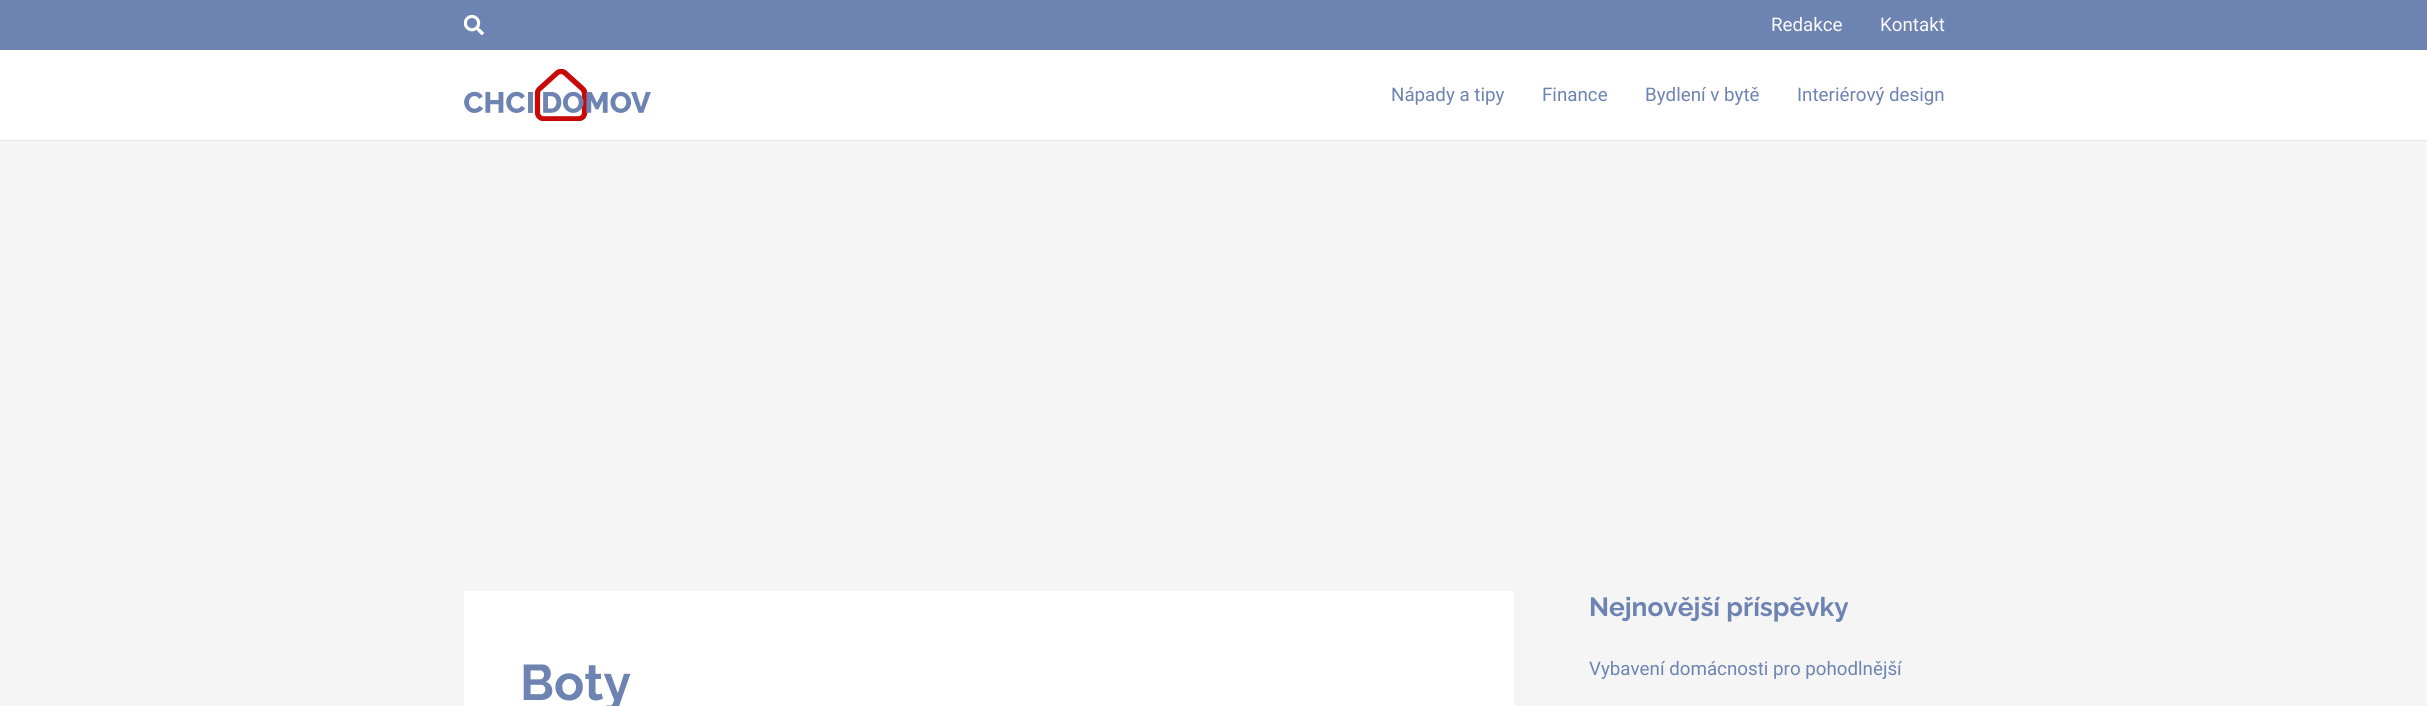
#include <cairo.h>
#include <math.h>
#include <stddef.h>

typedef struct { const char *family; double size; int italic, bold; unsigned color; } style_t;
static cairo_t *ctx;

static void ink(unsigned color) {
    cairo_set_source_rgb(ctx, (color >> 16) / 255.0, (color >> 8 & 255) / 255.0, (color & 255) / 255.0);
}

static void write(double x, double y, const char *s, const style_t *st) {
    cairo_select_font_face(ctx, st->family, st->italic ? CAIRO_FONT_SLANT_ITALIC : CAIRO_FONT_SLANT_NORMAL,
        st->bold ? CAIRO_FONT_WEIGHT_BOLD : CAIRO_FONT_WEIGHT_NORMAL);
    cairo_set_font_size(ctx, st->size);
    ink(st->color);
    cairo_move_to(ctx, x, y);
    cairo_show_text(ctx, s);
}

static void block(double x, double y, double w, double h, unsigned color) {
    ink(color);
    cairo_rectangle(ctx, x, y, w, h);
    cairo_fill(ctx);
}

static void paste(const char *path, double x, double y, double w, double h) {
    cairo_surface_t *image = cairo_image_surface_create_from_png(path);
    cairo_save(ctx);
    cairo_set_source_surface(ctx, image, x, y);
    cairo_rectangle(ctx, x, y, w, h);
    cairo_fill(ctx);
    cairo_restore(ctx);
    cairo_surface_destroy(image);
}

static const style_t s1 = {"Roboto", 18.75, 0, 0, 0xfafafa};
static const style_t s2 = {"Roboto", 18.75, 0, 0, 0x6d84b2};
static const style_t s3 = {"Raleway Thin", 26.25, 0, 0, 0x6d84b2};
static const style_t s4 = {"Raleway Thin", 50, 0, 0, 0x6d84b2};

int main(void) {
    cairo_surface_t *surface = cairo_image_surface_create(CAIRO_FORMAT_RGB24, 2427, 706);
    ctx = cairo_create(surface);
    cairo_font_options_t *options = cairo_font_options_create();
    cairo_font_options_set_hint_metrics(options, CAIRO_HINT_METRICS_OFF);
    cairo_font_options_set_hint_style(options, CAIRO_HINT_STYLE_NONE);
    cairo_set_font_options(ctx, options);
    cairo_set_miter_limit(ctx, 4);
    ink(0xf5f5f5);
    cairo_paint(ctx);
    block(0, 0, 2427, 50, 0x6d84b2);
    paste("pic1.png", 464, 14, 20, 21);
    write(1771, 31, "Redakce", &s1);
    write(1880, 31, "Kontakt", &s1);
    block(0, 50, 2427, 90, 0xffffff);
    block(0, 140, 2427, 1, 0xe5e5e5);
    paste("pic2.png", 464, 69, 187, 52);
    write(1391, 101, "Nápady a tipy", &s2);
    write(1542, 101, "Finance", &s2);
    write(1645, 101, "Bydlení v bytě", &s2);
    write(1797, 101, "Interiérový design", &s2);
    write(1589, 616, "Nejnovější příspěvky", &s3);
    write(1589, 675, "Vybavení domácnosti pro pohodlnější", &s2);
    block(464, 591, 1050, 115, 0xffffff);
    write(520, 700, "Boty", &s4);
    cairo_surface_write_to_png(surface, "screenshot.png");
    cairo_font_options_destroy(options);
    cairo_destroy(ctx);
    cairo_surface_destroy(surface);
    return 0;
}
